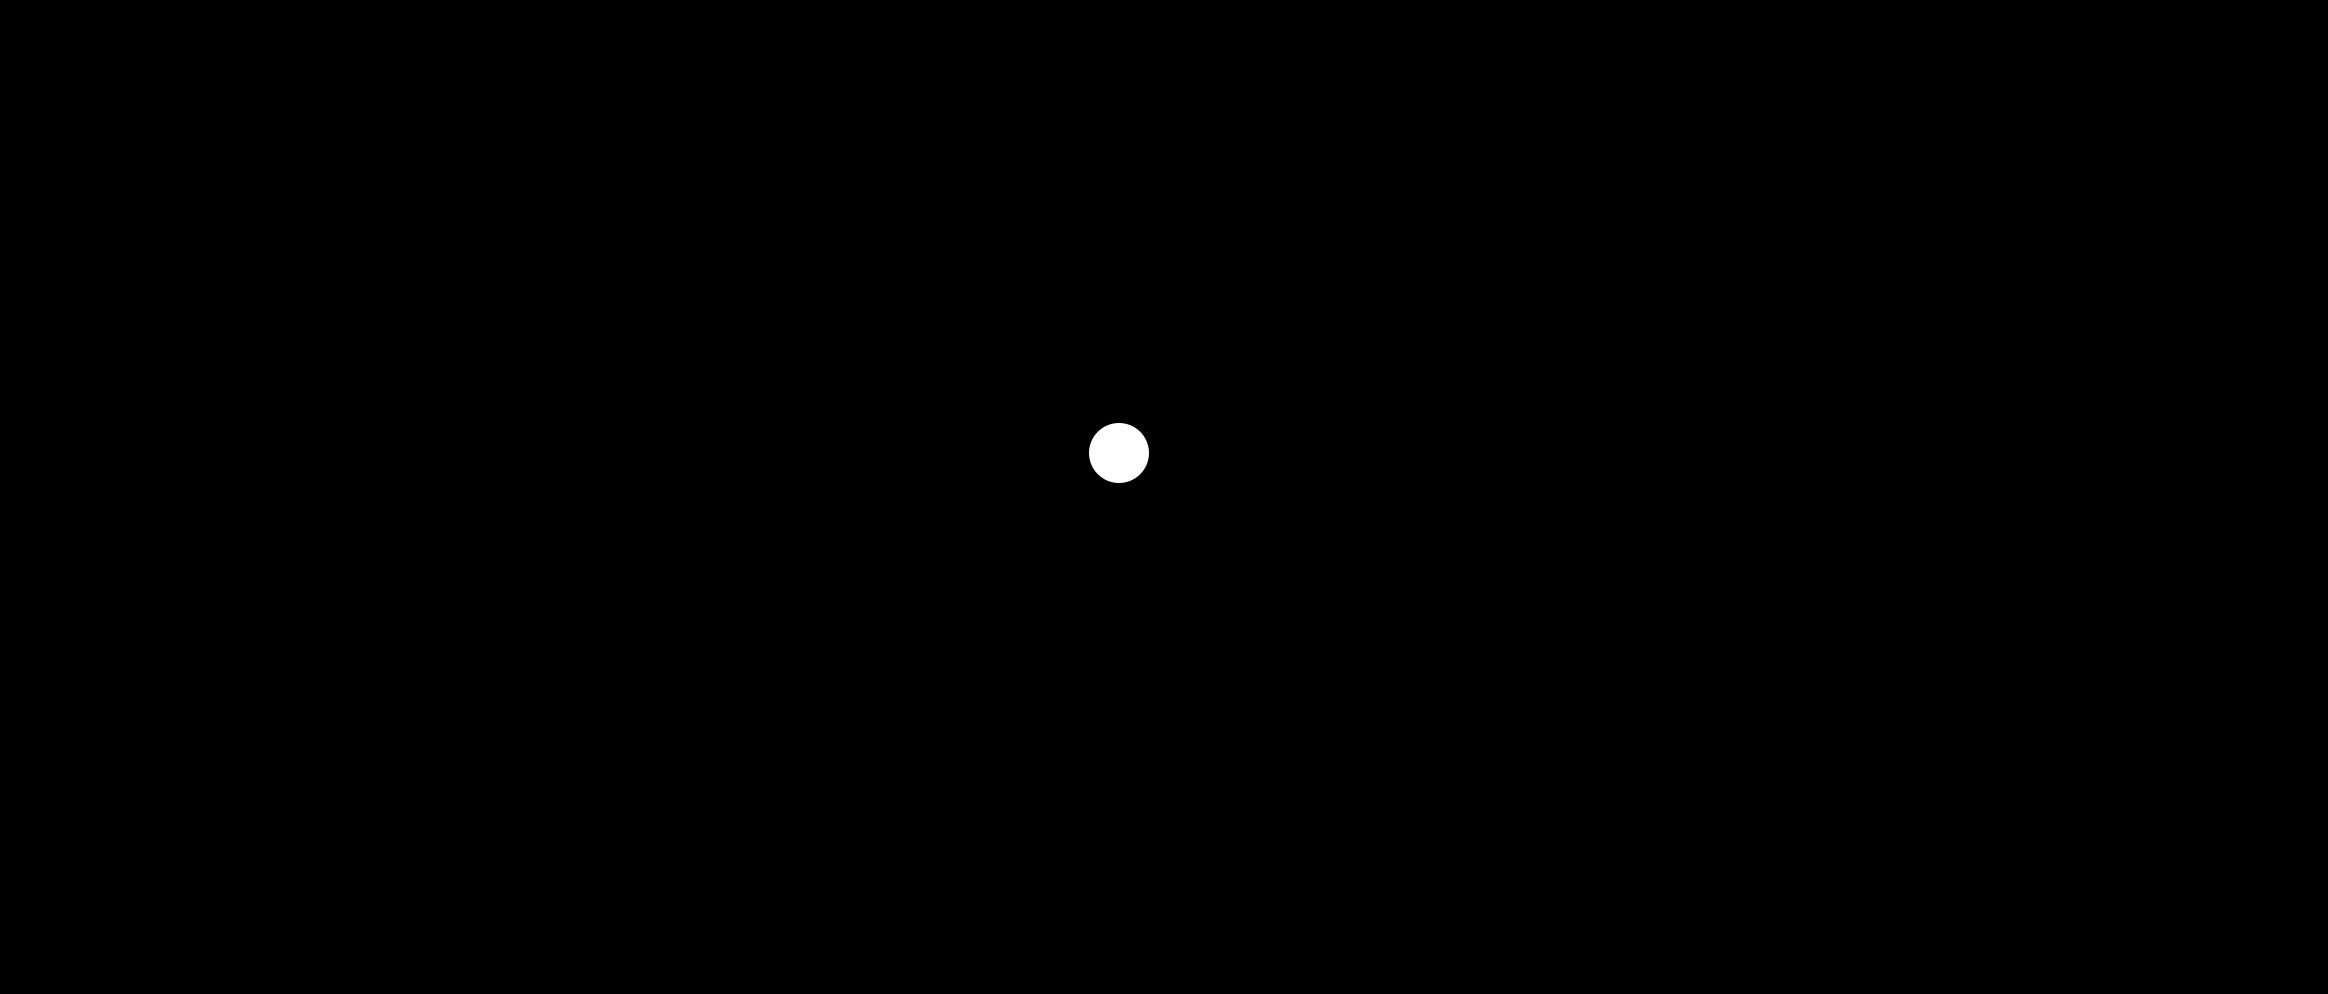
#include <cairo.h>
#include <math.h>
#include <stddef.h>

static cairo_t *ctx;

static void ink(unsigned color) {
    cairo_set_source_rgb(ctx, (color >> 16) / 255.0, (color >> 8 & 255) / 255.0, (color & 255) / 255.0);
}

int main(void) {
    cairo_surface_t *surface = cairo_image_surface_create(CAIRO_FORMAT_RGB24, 2328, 994);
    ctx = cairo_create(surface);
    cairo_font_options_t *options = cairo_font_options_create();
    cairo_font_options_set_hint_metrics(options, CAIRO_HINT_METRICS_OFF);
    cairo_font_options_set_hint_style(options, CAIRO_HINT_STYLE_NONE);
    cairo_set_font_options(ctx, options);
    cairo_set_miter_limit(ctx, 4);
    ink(0x000000);
    cairo_paint(ctx);
    ink(0xffffff);
    cairo_arc(ctx, 1119, 453, 30, 0, 2 * M_PI);
    cairo_fill(ctx);
    cairo_surface_write_to_png(surface, "screenshot.png");
    cairo_font_options_destroy(options);
    cairo_destroy(ctx);
    cairo_surface_destroy(surface);
    return 0;
}
